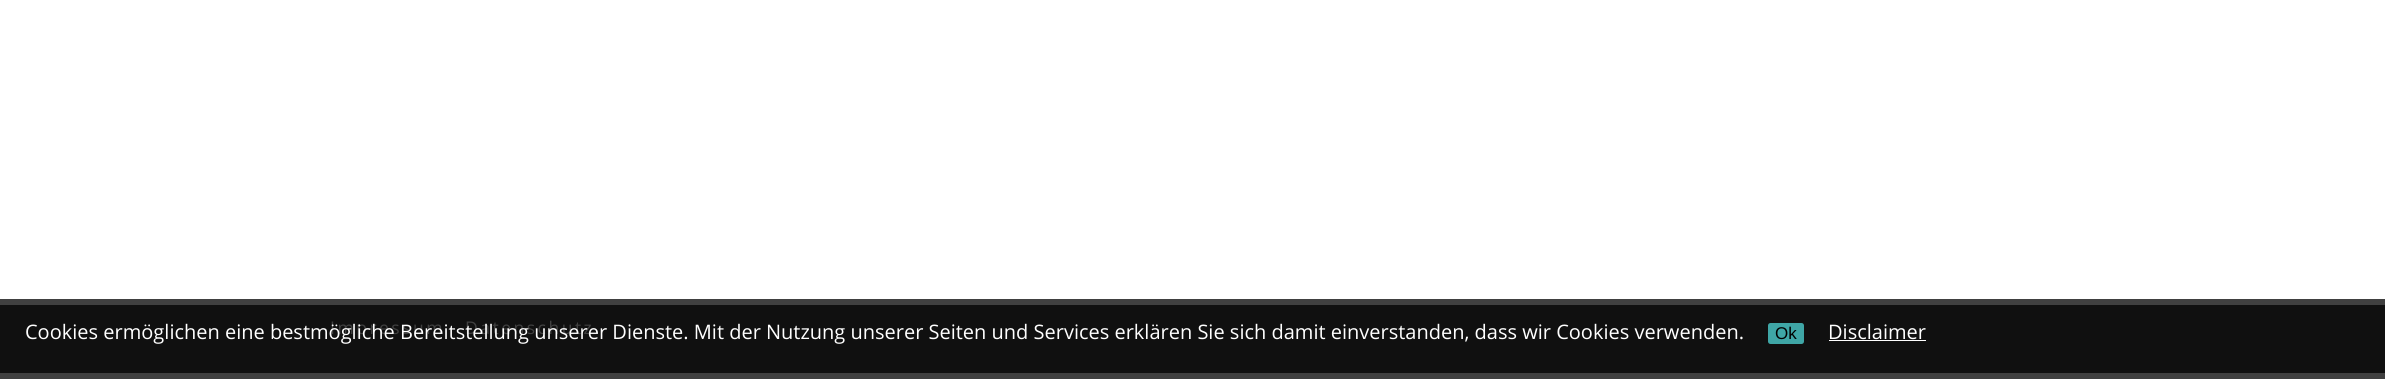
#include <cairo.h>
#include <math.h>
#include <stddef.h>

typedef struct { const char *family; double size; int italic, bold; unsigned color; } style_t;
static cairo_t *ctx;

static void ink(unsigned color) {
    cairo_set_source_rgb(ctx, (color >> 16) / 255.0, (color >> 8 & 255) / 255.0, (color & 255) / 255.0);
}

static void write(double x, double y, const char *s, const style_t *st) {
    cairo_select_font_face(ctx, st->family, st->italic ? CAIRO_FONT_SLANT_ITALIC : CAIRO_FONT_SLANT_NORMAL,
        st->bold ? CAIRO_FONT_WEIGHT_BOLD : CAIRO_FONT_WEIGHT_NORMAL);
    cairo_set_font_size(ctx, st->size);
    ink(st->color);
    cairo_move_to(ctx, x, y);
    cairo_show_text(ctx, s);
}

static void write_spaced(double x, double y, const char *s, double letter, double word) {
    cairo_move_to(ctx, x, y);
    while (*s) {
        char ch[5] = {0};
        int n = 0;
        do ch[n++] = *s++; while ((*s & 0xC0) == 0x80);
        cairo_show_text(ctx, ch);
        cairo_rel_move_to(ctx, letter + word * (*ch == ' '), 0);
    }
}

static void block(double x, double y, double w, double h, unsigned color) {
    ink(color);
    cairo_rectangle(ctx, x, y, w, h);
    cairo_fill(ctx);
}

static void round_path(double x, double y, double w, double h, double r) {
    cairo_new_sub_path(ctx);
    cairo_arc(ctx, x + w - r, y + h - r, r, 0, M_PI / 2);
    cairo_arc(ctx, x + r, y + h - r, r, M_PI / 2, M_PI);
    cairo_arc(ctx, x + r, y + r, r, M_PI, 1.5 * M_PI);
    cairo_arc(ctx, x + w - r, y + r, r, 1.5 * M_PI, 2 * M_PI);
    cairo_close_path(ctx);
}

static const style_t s1 = {"Open Sans", 20, 0, 0, 0xffffff};
static const style_t s2 = {"Liberation Sans", 17, 0, 0, 0x000000};

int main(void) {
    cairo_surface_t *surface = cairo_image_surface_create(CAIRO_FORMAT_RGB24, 2385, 379);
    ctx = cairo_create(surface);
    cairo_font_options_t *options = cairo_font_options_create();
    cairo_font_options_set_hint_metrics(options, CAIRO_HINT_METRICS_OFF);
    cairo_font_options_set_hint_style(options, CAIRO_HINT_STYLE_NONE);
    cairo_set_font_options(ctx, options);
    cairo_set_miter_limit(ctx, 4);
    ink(0xffffff);
    cairo_paint(ctx);
    block(0, 373, 2385, 6, 0x404040);
    block(0, 299, 2385, 6, 0x404040);
    block(0, 305, 2385, 68, 0x101010);
    cairo_select_font_face(ctx, "Open Sans", CAIRO_FONT_SLANT_NORMAL, CAIRO_FONT_WEIGHT_NORMAL);
    cairo_set_font_size(ctx, 17.5);
    ink(0x404040);
    write_spaced(330, 334, "Impressum", 2.5, 0);
    write_spaced(465, 334, "Datenschutz", 2.5, 0);
    write(25, 339, "Cookies ermöglichen eine bestmögliche Bereitstellung unserer Dienste. Mit der Nutzung unserer Seiten und Services erklären Sie sich damit einverstanden, dass wir Cookies verwenden.", &s1);
    ink(0x3fa6a6);
    round_path(1768, 323, 36, 21, 2.5);
    cairo_fill(ctx);
    write(1775, 339, "Ok", &s2);
    write(1828, 339, "Disclaimer", &s1);
    block(1829, 340, 97, 1, 0xffffff);
    cairo_surface_write_to_png(surface, "screenshot.png");
    cairo_font_options_destroy(options);
    cairo_destroy(ctx);
    cairo_surface_destroy(surface);
    return 0;
}
